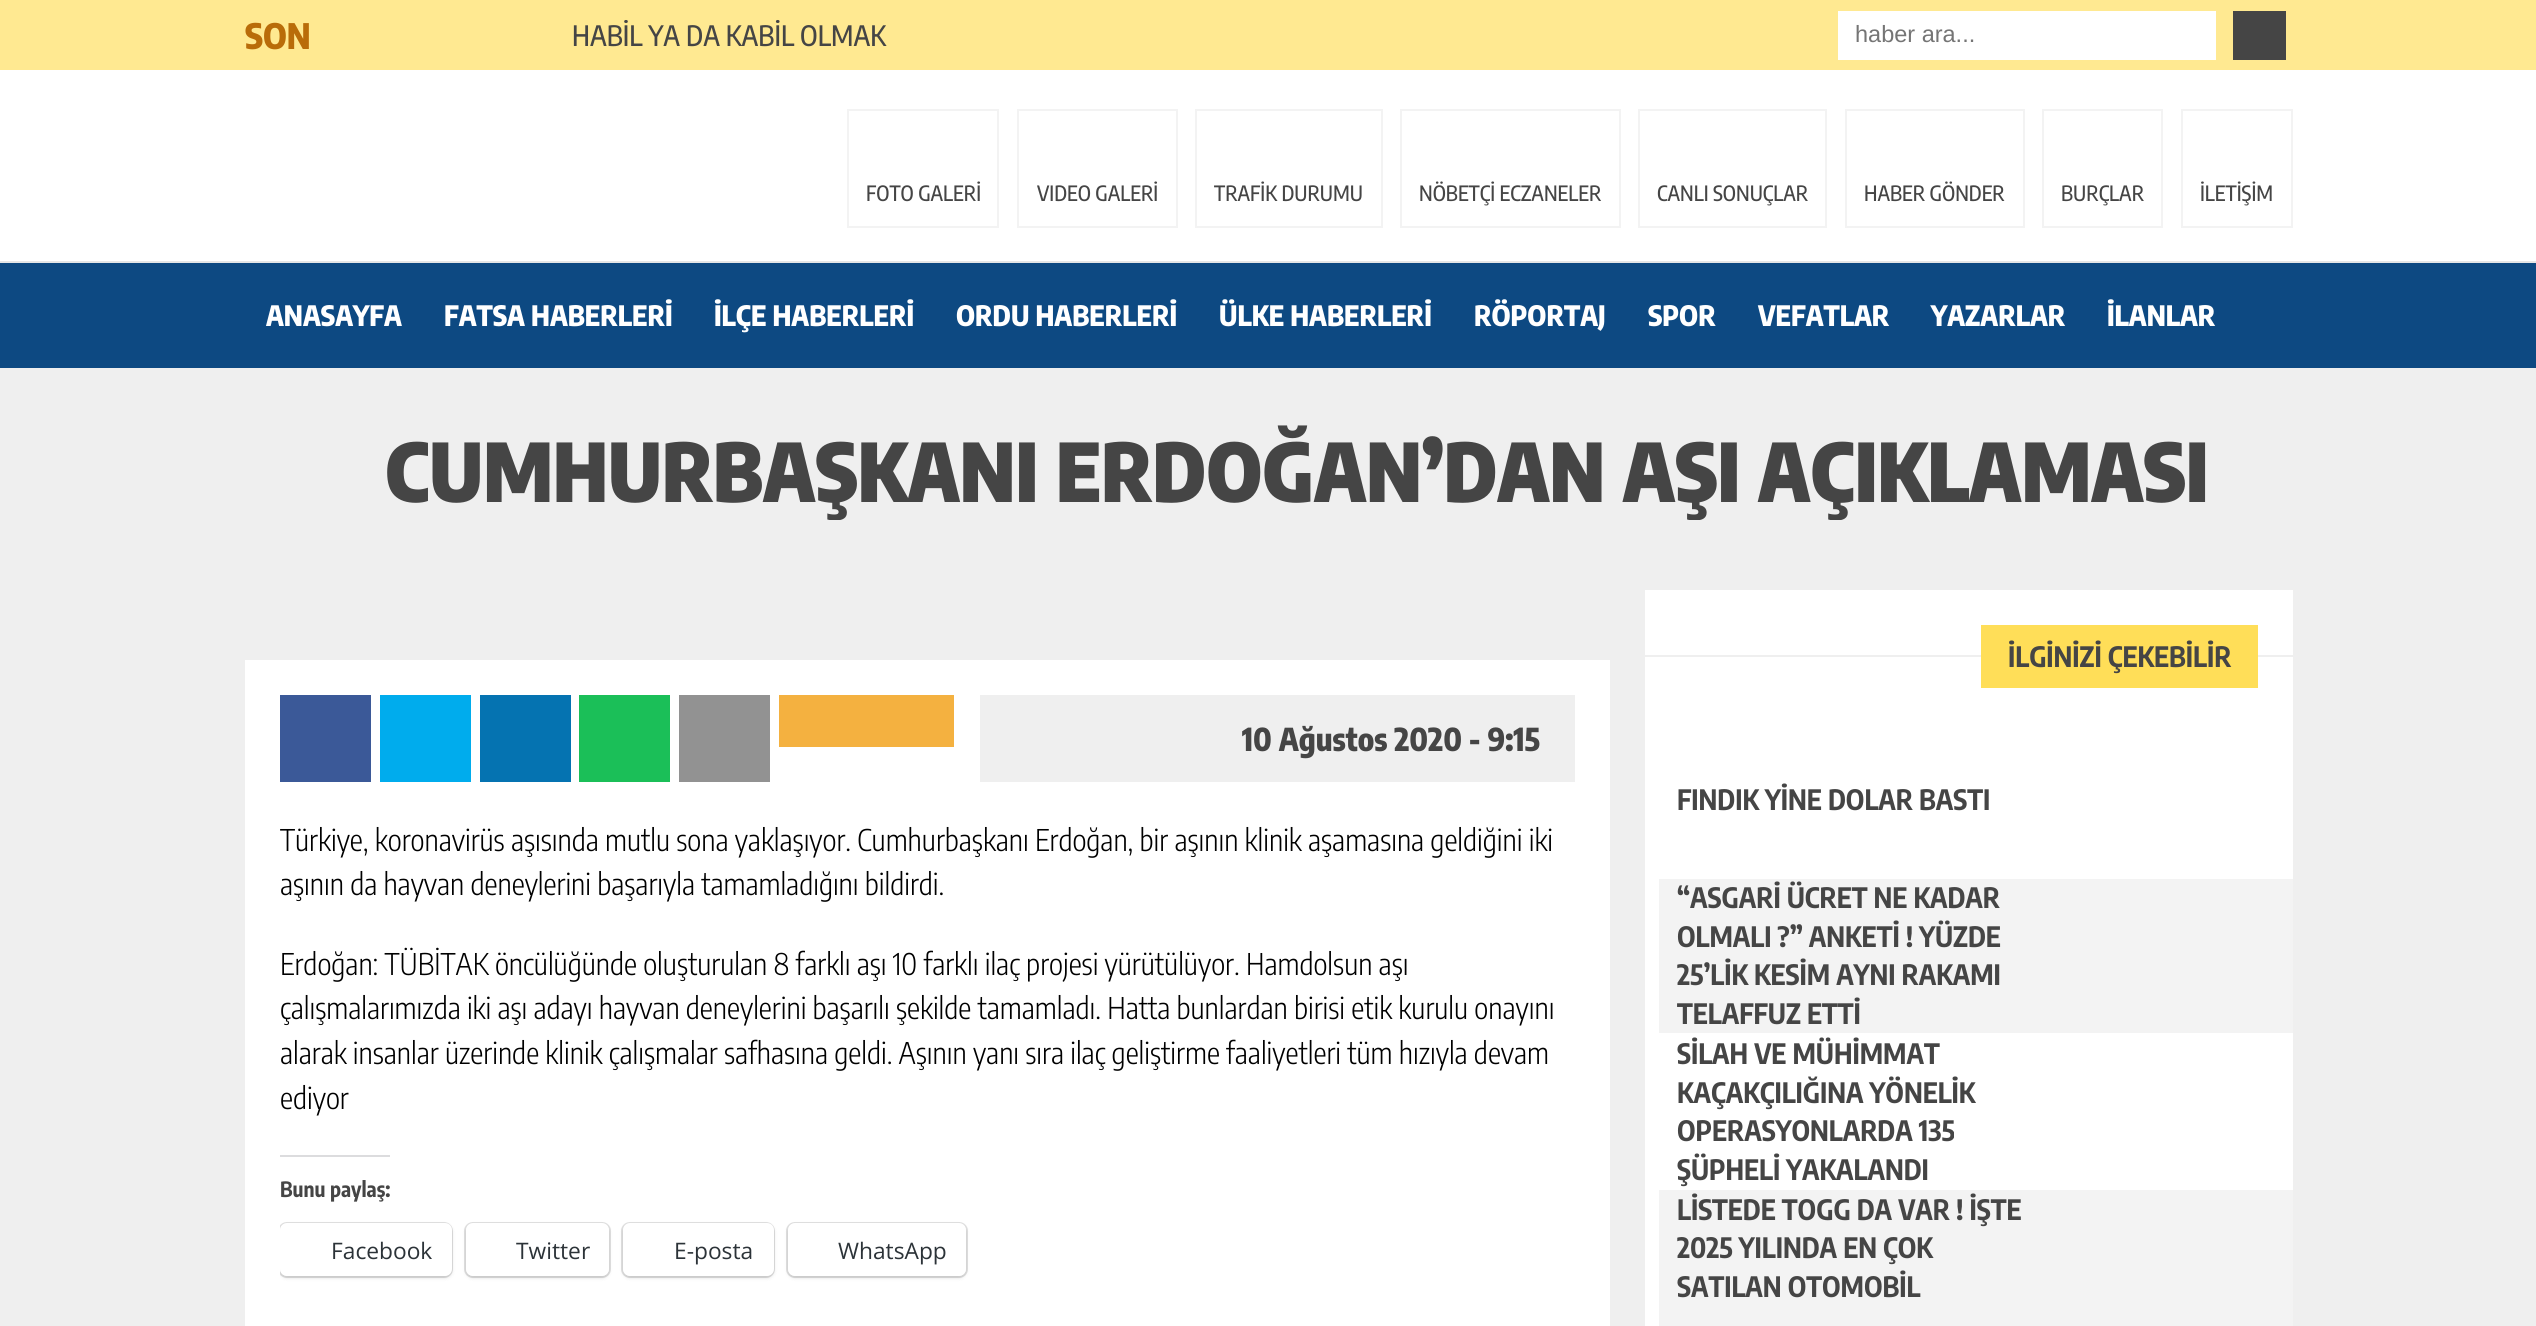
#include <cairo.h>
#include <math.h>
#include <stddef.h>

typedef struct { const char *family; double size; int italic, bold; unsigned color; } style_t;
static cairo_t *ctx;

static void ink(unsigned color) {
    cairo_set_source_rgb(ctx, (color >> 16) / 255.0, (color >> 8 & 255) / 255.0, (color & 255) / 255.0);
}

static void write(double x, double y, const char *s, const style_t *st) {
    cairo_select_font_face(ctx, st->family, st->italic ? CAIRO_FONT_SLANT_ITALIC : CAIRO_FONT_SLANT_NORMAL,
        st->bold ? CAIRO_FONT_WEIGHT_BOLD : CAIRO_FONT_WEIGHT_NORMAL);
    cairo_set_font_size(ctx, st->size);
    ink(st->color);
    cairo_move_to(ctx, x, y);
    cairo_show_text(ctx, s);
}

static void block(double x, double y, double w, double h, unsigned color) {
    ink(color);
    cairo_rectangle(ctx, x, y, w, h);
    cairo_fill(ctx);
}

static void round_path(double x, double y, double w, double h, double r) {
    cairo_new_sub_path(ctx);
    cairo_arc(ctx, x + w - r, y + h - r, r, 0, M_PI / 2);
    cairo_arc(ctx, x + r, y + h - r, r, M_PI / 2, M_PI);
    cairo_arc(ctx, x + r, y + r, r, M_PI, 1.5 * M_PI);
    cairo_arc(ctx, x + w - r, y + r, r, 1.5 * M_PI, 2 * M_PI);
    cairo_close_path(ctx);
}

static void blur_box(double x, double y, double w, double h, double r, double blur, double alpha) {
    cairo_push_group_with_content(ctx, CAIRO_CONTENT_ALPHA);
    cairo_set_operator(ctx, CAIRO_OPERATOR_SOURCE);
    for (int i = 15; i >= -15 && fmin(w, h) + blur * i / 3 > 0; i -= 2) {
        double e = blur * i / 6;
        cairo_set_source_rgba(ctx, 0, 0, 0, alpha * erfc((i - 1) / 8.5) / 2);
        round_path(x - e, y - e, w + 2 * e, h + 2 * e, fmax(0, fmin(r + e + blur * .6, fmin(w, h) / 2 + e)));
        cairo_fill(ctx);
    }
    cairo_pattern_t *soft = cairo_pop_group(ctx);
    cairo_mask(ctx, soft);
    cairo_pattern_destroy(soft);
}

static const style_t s1 = {"Encode Sans Condensed ExtraBold", 35, 0, 0, 0xb96c09};
static const style_t s2 = {"Encode Sans Condensed Medium", 28, 0, 0, 0x454545};
static const style_t s3 = {"Liberation Sans", 23.5, 0, 0, 0x757575};
static const style_t s4 = {"Encode Sans Condensed Medium", 21, 0, 0, 0x454545};
static const style_t s5 = {"Encode Sans Condensed ExtraBold", 28, 0, 0, 0xffffff};
static const style_t s6 = {"Encode Sans Condensed Black", 80.5, 0, 0, 0x454545};
static const style_t s7 = {"Encode Sans Condensed ExtraBold", 31.5, 0, 0, 0x454545};
static const style_t s8 = {"Encode Sans Condensed Light", 29.75, 0, 0, 0x000000};
static const style_t s9 = {"Encode Sans Condensed", 21, 0, 1, 0x454545};
static const style_t s10 = {"Open Sans", 22.75, 0, 0, 0x2c3338};
static const style_t s11 = {"Encode Sans Condensed", 28, 0, 1, 0x454545};

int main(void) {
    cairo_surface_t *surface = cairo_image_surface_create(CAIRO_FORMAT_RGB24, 2536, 1326);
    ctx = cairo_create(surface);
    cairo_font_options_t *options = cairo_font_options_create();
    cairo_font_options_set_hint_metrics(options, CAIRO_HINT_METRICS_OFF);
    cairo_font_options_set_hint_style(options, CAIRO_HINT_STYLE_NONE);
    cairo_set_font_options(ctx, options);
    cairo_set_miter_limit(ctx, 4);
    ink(0xefefef);
    cairo_paint(ctx);
    block(0, 0, 2536, 70, 0xffe991);
    write(245, 49, "SON", &s1);
    write(572, 46, "HABİL YA DA KABİL OLMAK", &s2);
    block(1838, 11, 378, 49, 0xffffff);
    write(1855, 42, "haber ara...", &s3);
    block(2233, 11, 53, 49, 0x454545);
    block(0, 70, 2536, 191, 0xffffff);
    block(0, 261, 2536, 2, 0xe6e6e6);
    cairo_rectangle(ctx, 848, 110, 150, 117);
    ink(0xf3f3f3);
    cairo_stroke(ctx);
    write(866, 201, "FOTO GALERİ", &s4);
    cairo_rectangle(ctx, 1018, 110, 159, 117);
    ink(0xf3f3f3);
    cairo_stroke(ctx);
    write(1037, 201, "VIDEO GALERİ", &s4);
    cairo_rectangle(ctx, 1196, 110, 186, 117);
    ink(0xf3f3f3);
    cairo_stroke(ctx);
    write(1214, 201, "TRAFİK DURUMU", &s4);
    cairo_rectangle(ctx, 1401, 110, 219, 117);
    ink(0xf3f3f3);
    cairo_stroke(ctx);
    write(1419, 201, "NÖBETÇİ ECZANELER", &s4);
    cairo_rectangle(ctx, 1639, 110, 187, 117);
    ink(0xf3f3f3);
    cairo_stroke(ctx);
    write(1657, 201, "CANLI SONUÇLAR", &s4);
    cairo_rectangle(ctx, 1846, 110, 178, 117);
    ink(0xf3f3f3);
    cairo_stroke(ctx);
    write(1864, 201, "HABER GÖNDER", &s4);
    cairo_rectangle(ctx, 2043, 110, 119, 117);
    ink(0xf3f3f3);
    cairo_stroke(ctx);
    write(2061, 201, "BURÇLAR", &s4);
    cairo_rectangle(ctx, 2182, 110, 110, 117);
    ink(0xf3f3f3);
    cairo_stroke(ctx);
    write(2200, 201, "İLETİŞİM", &s4);
    block(0, 263, 2536, 105, 0x0d4982);
    write(266, 326, "ANASAYFA", &s5);
    write(444, 326, "FATSA HABERLERİ", &s5);
    write(714, 326, "İLÇE HABERLERİ", &s5);
    write(956, 326, "ORDU HABERLERİ", &s5);
    write(1219, 326, "ÜLKE HABERLERİ", &s5);
    write(1474, 326, "RÖPORTAJ", &s5);
    write(1648, 326, "SPOR", &s5);
    write(1758, 326, "VEFATLAR", &s5);
    write(1931, 326, "YAZARLAR", &s5);
    write(2107, 326, "İLANLAR", &s5);
    cairo_save(ctx);
    cairo_rectangle(ctx, 245, 420, 2048, 100);
    cairo_clip(ctx);
    write(385, 502, "CUMHURBAŞKANI ERDOĞAN’DAN AŞI AÇIKLAMASI", &s6);
    cairo_restore(ctx);
    block(245, 660, 1365, 666, 0xffffff);
    block(280, 695, 91, 87, 0x3b5998);
    block(380, 695, 91, 87, 0x00aced);
    block(480, 695, 91, 87, 0x0573b1);
    block(579, 695, 91, 87, 0x1bbf58);
    block(679, 695, 91, 87, 0x929292);
    block(779, 695, 175, 52, 0xf4b140);
    block(980, 695, 595, 87, 0xefefef);
    write(1242, 751, "10 Ağustos 2020 - 9:15", &s7);
    write(280, 851, "Türkiye, koronavirüs aşısında mutlu sona yaklaşıyor. Cumhurbaşkanı Erdoğan, bir aşının klinik aşamasına geldiğini iki", &s8);
    write(280, 895, "aşının da hayvan deneylerini başarıyla tamamladığını bildirdi.", &s8);
    write(280, 975, "Erdoğan: TÜBİTAK öncülüğünde oluşturulan 8 farklı aşı 10 farklı ilaç projesi yürütülüyor. Hamdolsun aşı", &s8);
    write(280, 1019, "çalışmalarımızda iki aşı adayı hayvan deneylerini başarılı şekilde tamamladı. Hatta bunlardan birisi etik kurulu onayını", &s8);
    write(280, 1064, "alarak insanlar üzerinde klinik çalışmalar safhasına geldi. Aşının yanı sıra ilaç geliştirme faaliyetleri tüm hızıyla devam", &s8);
    write(280, 1109, "ediyor", &s8);
    block(280, 1155, 110, 2, 0xdcdcde);
    write(280, 1197, "Bunu paylaş:", &s9);
    cairo_save(ctx);
    cairo_rectangle(ctx, 280, 817, 1295, 508);
    cairo_clip(ctx);
    round_path(279, 1223, 173, 54, 8);
    ink(0xe0e0e0);
    cairo_stroke(ctx);
    cairo_restore(ctx);
    cairo_save(ctx);
    cairo_rectangle(ctx, 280, 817, 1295, 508);
    cairo_clip(ctx);
    ink(0x000000);
    blur_box(280, 1225, 172, 53, 7, 2, 0.12);
    cairo_restore(ctx);
    ink(0xffffff);
    round_path(280, 1223, 172, 53, 7);
    cairo_fill(ctx);
    write(331, 1259, "Facebook", &s10);
    round_path(465, 1223, 145, 54, 8);
    ink(0xe0e0e0);
    cairo_stroke(ctx);
    ink(0x000000);
    blur_box(466, 1225, 143, 53, 7, 2, 0.12);
    ink(0xffffff);
    round_path(466, 1223, 143, 53, 7);
    cairo_fill(ctx);
    write(516, 1259, "Twitter", &s10);
    round_path(622, 1223, 152, 54, 8);
    ink(0xe0e0e0);
    cairo_stroke(ctx);
    ink(0x000000);
    blur_box(623, 1225, 151, 53, 7, 2, 0.12);
    ink(0xffffff);
    round_path(623, 1223, 151, 53, 7);
    cairo_fill(ctx);
    write(674, 1259, "E-posta", &s10);
    round_path(787, 1223, 180, 54, 8);
    ink(0xe0e0e0);
    cairo_stroke(ctx);
    ink(0x000000);
    blur_box(788, 1225, 178, 53, 7, 2, 0.12);
    ink(0xffffff);
    round_path(788, 1223, 178, 53, 7);
    cairo_fill(ctx);
    write(838, 1259, "WhatsApp", &s10);
    block(1645, 590, 648, 600, 0xffffff);
    block(1645, 655, 648, 2, 0xefefef);
    block(1981, 625, 277, 63, 0xffde58);
    write(2008, 667, "İLGİNİZİ ÇEKEBİLİR", &s11);
    write(1677, 810, "FINDIK YİNE DOLAR BASTI", &s11);
    block(1659, 879, 634, 154, 0xf3f3f3);
    write(1677, 908, "“ASGARİ ÜCRET NE KADAR", &s11);
    write(1677, 947, "OLMALI ?” ANKETİ ! YÜZDE", &s11);
    write(1677, 985, "25’LİK KESİM AYNI RAKAMI", &s11);
    write(1677, 1024, "TELAFFUZ ETTİ", &s11);
    write(1677, 1064, "SİLAH VE MÜHİMMAT", &s11);
    write(1677, 1103, "KAÇAKÇILIĞINA YÖNELİK", &s11);
    write(1677, 1141, "OPERASYONLARDA 135", &s11);
    write(1677, 1180, "ŞÜPHELİ YAKALANDI", &s11);
    block(1659, 1190, 634, 136, 0xf3f3f3);
    block(1645, 1190, 14, 136, 0xffffff);
    write(1677, 1220, "LİSTEDE TOGG DA VAR ! İŞTE", &s11);
    write(1677, 1258, "2025 YILINDA EN ÇOK", &s11);
    write(1677, 1297, "SATILAN OTOMOBİL", &s11);
    cairo_surface_write_to_png(surface, "screenshot.png");
    cairo_font_options_destroy(options);
    cairo_destroy(ctx);
    cairo_surface_destroy(surface);
    return 0;
}
